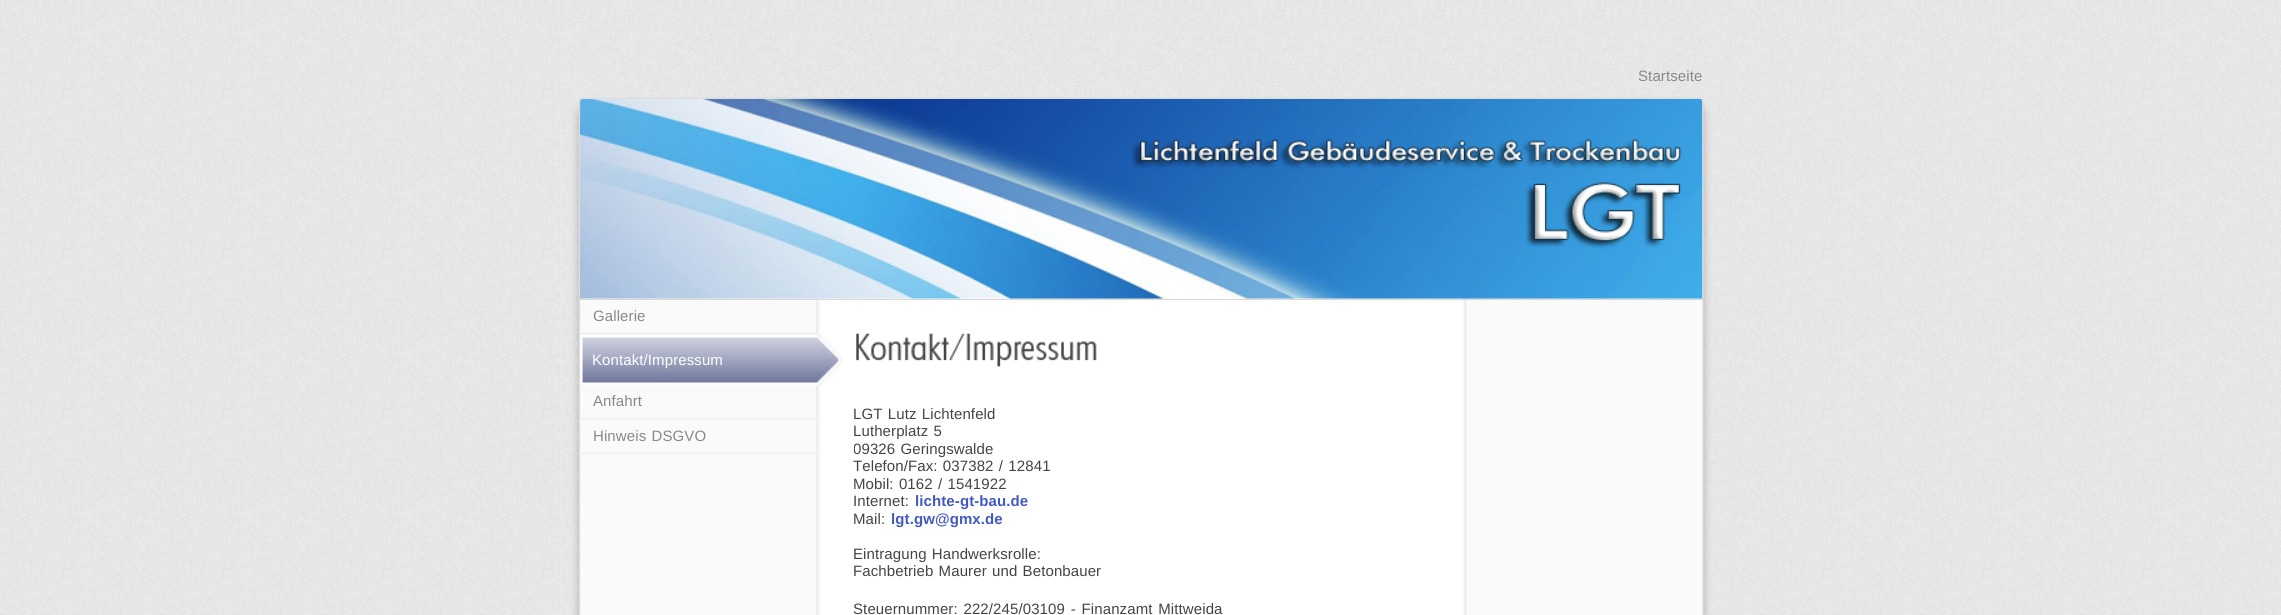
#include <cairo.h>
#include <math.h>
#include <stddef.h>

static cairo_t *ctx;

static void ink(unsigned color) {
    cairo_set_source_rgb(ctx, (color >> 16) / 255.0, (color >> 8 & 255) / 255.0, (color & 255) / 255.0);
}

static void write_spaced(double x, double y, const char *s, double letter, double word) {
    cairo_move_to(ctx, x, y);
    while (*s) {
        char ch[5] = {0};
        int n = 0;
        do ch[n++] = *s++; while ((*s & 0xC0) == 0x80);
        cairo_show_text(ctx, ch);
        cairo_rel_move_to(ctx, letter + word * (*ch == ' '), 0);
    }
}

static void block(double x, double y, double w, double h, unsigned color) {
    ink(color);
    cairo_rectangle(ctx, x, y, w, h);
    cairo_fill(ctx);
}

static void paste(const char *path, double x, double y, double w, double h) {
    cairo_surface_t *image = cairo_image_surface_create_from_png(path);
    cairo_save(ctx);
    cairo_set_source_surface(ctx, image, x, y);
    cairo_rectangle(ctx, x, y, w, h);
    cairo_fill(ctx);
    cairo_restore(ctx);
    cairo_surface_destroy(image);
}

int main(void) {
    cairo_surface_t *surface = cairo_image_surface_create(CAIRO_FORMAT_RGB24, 2281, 615);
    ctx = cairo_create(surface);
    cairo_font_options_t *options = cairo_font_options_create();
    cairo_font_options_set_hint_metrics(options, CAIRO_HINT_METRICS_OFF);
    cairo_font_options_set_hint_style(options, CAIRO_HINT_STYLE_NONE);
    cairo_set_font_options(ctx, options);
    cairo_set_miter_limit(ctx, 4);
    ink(0xffffff);
    cairo_paint(ctx);
    paste("pic1.png", 0, 0, 2281, 615);
    paste("pic2.png", 579, 10, 1125, 75);
    cairo_select_font_face(ctx, "Liberation Sans", CAIRO_FONT_SLANT_NORMAL, CAIRO_FONT_WEIGHT_NORMAL);
    cairo_set_font_size(ctx, 15);
    ink(0x888888);
    write_spaced(1638, 81, "Startseite", 0.1, 0);
    paste("pic3.png", 554, 85, 1175, 530);
    paste("pic5.png", 580, 98, 1123, 201);
    paste("pic4.png", 554, 85, 1175, 38);
    block(580, 299, 1123, 1, 0xd8d8d8);
    block(581, 332, 236, 3, 0xf3f3f3);
    ink(0x888888);
    write_spaced(593, 321, "Gallerie", 0.1, 0);
    paste("pic6.png", 580, 335, 263, 50);
    ink(0xffffff);
    write_spaced(592, 365, "Kontakt/Impressum", 0.1, 0);
    block(581, 417, 236, 3, 0xf3f3f3);
    ink(0x888888);
    write_spaced(593, 406, "Anfahrt", 0.1, 0);
    block(581, 452, 236, 3, 0xf3f3f3);
    ink(0x888888);
    write_spaced(593, 441, "Hinweis DSGVO", 0.1, 1);
    paste("pic7.png", 856, 333, 241, 34);
    ink(0x444444);
    write_spaced(853, 419, "LGT Lutz Lichtenfeld", 0.1, 1);
    write_spaced(853, 436, "Lutherplatz 5", 0.1, 1);
    cairo_save(ctx);
    cairo_rectangle(ctx, 854, 388, 575, 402);
    cairo_clip(ctx);
    write_spaced(853, 454, "09326 Geringswalde", 0.1, 1);
    cairo_restore(ctx);
    write_spaced(853, 471, "Telefon/Fax: 037382 / 12841", 0.1, 1);
    write_spaced(853, 489, "Mobil: 0162 / 1541922", 0.1, 1);
    write_spaced(853, 506, "Internet:", 0.1, 0);
    cairo_select_font_face(ctx, "Liberation Sans", CAIRO_FONT_SLANT_NORMAL, CAIRO_FONT_WEIGHT_BOLD);
    ink(0x4259c3);
    write_spaced(915, 506, "lichte-gt-bau.de", 0.1, 0);
    cairo_select_font_face(ctx, "Liberation Sans", CAIRO_FONT_SLANT_NORMAL, CAIRO_FONT_WEIGHT_NORMAL);
    ink(0x444444);
    write_spaced(853, 524, "Mail:", 0.1, 0);
    cairo_select_font_face(ctx, "Liberation Sans", CAIRO_FONT_SLANT_NORMAL, CAIRO_FONT_WEIGHT_BOLD);
    ink(0x4259c3);
    write_spaced(891, 524, "lgt.gw@gmx.de", 0.1, 0);
    cairo_select_font_face(ctx, "Liberation Sans", CAIRO_FONT_SLANT_NORMAL, CAIRO_FONT_WEIGHT_NORMAL);
    ink(0x444444);
    write_spaced(853, 559, "Eintragung Handwerksrolle:", 0.1, 1);
    write_spaced(853, 576, "Fachbetrieb Maurer und Betonbauer", 0.1, 1);
    write_spaced(853, 614, "Steuernummer: 222/245/03109 - Finanzamt Mittweida", 0.1, 1.5);
    cairo_surface_write_to_png(surface, "screenshot.png");
    cairo_font_options_destroy(options);
    cairo_destroy(ctx);
    cairo_surface_destroy(surface);
    return 0;
}
